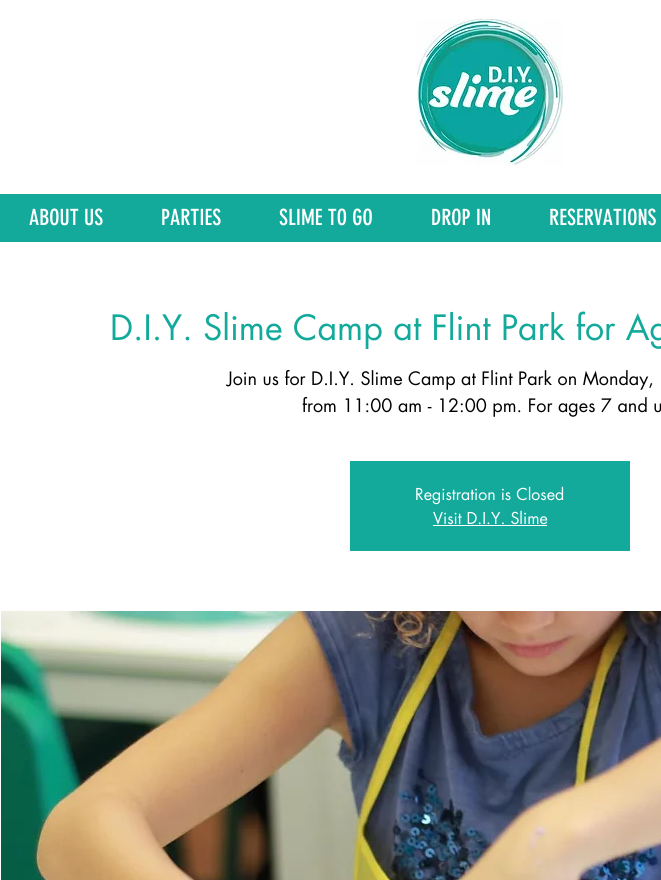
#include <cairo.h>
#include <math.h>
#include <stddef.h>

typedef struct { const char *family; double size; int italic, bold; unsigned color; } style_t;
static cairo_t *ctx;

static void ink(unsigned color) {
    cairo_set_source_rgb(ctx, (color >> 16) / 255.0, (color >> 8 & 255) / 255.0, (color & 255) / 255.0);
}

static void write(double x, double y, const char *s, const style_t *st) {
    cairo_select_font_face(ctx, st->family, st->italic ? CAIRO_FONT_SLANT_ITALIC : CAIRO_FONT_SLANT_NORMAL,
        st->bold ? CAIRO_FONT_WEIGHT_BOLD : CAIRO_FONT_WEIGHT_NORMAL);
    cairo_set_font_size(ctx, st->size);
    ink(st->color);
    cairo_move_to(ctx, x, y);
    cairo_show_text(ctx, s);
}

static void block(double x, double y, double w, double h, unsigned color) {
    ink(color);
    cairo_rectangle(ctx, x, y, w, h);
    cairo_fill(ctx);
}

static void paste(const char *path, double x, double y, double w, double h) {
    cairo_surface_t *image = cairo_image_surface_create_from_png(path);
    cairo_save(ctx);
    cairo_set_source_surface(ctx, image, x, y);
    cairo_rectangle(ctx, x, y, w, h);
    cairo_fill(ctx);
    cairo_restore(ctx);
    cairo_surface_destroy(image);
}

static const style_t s1 = {"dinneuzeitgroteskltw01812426", 22, 0, 0, 0xffffff};
static const style_t s2 = {"futura", 34, 0, 0, 0x13aa9b};
static const style_t s3 = {"futura", 18, 0, 0, 0x000000};
static const style_t s4 = {"futura", 16, 0, 0, 0xffffff};

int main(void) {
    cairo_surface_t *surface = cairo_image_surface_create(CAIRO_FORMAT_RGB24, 661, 880);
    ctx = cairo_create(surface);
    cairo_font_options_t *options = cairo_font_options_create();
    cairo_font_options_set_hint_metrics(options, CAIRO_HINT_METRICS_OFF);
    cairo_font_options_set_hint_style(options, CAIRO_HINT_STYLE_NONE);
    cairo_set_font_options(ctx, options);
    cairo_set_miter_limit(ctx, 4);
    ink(0xffffff);
    cairo_paint(ctx);
    paste("pic1.png", 417, 19, 146, 146);
    block(0, 194, 661, 48, 0x13aa9b);
    write(29, 225, "ABOUT US", &s1);
    write(161, 225, "PARTIES", &s1);
    write(279, 225, "SLIME TO GO", &s1);
    write(431, 225, "DROP IN", &s1);
    write(549, 225, "RESERVATIONS", &s1);
    write(110, 340, "D.I.Y. Slime Camp at Flint Park for Ag", &s2);
    write(227, 385, "Join us for D.I.Y. Slime Camp at Flint Park on Monday,", &s3);
    write(302, 412, "from 11:00 am - 12:00 pm. For ages 7 and u", &s3);
    block(350, 461, 280, 90, 0x13aa9b);
    write(415, 500, "Registration is Closed", &s4);
    write(433, 524, "Visit D.I.Y. Slime", &s4);
    block(433, 525, 114, 1, 0xffffff);
    paste("pic2.png", 1, 611, 660, 269);
    cairo_surface_write_to_png(surface, "screenshot.png");
    cairo_font_options_destroy(options);
    cairo_destroy(ctx);
    cairo_surface_destroy(surface);
    return 0;
}
